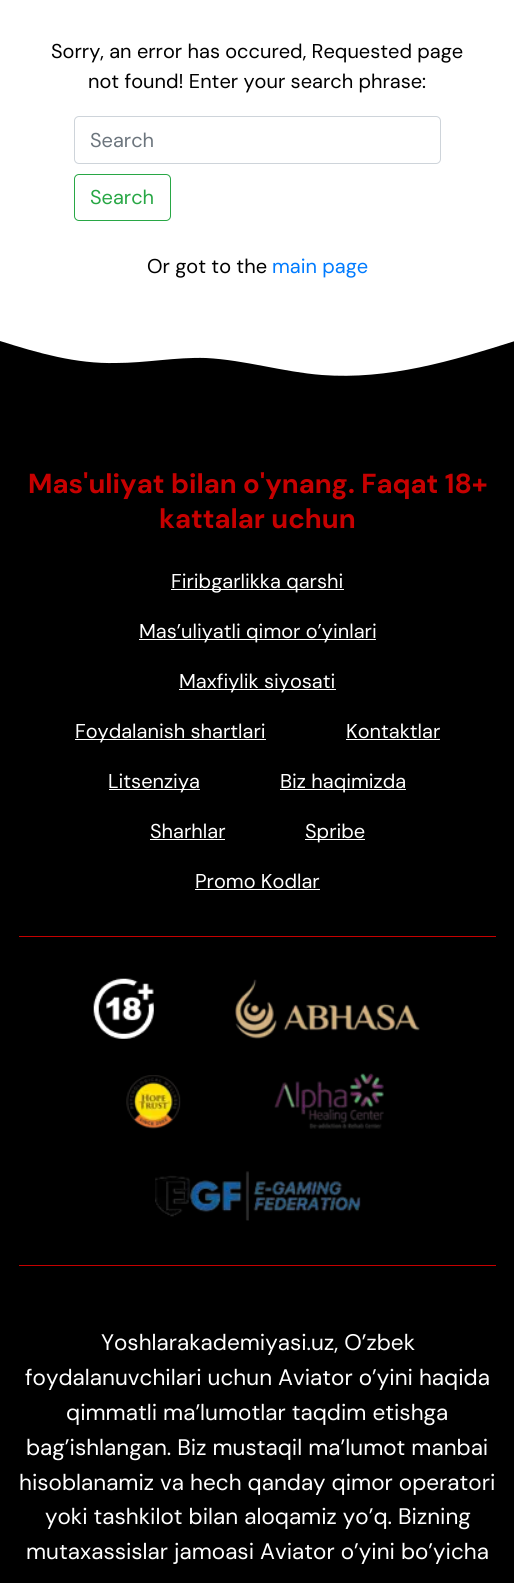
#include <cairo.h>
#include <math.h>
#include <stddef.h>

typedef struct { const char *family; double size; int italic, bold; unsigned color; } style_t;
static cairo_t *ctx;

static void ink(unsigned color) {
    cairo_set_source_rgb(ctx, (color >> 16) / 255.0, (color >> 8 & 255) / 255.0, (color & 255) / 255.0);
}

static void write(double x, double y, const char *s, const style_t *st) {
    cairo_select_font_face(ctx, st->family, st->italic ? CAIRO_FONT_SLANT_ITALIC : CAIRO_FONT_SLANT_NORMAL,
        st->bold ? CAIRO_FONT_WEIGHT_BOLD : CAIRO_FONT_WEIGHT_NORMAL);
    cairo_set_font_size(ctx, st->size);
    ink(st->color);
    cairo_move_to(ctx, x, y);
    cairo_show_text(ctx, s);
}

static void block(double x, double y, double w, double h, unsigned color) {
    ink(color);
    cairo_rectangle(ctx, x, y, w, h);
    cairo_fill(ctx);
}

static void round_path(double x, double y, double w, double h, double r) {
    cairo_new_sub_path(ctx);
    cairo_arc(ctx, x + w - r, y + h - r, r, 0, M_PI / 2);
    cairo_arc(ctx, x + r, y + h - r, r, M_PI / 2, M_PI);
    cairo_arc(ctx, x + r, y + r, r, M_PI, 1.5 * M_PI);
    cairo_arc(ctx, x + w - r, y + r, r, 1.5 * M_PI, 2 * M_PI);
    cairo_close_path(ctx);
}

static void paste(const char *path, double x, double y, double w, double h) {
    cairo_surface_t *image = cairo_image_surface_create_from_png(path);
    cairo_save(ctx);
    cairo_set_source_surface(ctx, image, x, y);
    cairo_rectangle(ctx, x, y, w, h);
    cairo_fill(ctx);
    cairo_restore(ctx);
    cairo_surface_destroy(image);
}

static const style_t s1 = {"DM Sans", 20, 0, 0, 0x000000};
static const style_t s2 = {"DM Sans", 20, 0, 0, 0x6c757d};
static const style_t s3 = {"DM Sans", 20, 0, 0, 0x28a745};
static const style_t s4 = {"DM Sans", 20, 0, 0, 0x007bff};
static const style_t s5 = {"DM Sans", 27.5, 0, 1, 0xc60000};
static const style_t s6 = {"DM Sans", 20, 0, 0, 0xffffff};
static const style_t s7 = {"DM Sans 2", 22.5, 0, 0, 0xffffff};

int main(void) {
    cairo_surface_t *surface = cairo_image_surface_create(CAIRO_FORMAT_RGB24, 514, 1583);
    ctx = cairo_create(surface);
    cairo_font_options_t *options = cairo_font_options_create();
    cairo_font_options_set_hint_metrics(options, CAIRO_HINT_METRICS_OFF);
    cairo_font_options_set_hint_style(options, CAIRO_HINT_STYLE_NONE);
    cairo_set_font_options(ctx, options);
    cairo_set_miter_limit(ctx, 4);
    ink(0xffffff);
    cairo_paint(ctx);
    write(51, 58, "Sorry, an error has occured, Requested page", &s1);
    write(88, 88, "not found! Enter your search phrase:", &s1);
    round_path(74.5, 116.5, 366, 47, 4.5);
    ink(0xced4da);
    cairo_set_line_width(ctx, 1);
    cairo_stroke(ctx);
    write(90, 147, "Search", &s2);
    round_path(74.5, 174.5, 96, 46, 4.5);
    ink(0x28a745);
    cairo_stroke(ctx);
    write(90, 204, "Search", &s3);
    write(147, 273, "Or got to the", &s1);
    write(272, 273, "main page", &s4);
    block(0, 387, 514, 1196, 0x000000);
    cairo_set_fill_rule(ctx, CAIRO_FILL_RULE_EVEN_ODD);
    cairo_new_path(ctx);
    cairo_move_to(ctx, 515, 341);
    cairo_curve_to(ctx, 452, 361, 388, 380, 322, 375);
    cairo_curve_to(ctx, 283, 372, 245, 360, 206, 358);
    cairo_curve_to(ctx, 176, 357, 146, 363, 116, 363);
    cairo_curve_to(ctx, 76, 364, 38, 353, 0, 341);
    cairo_line_to(ctx, 0, 387);
    cairo_line_to(ctx, 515, 387);
    cairo_close_path(ctx);
    cairo_fill(ctx);
    write(28, 493, "Mas'uliyat bilan o'ynang. Faqat 18+", &s5);
    write(159, 528, "kattalar uchun", &s5);
    block(171, 589, 173, 1, 0xffffff);
    write(171, 588, "Firibgarlikka qarshi", &s6);
    block(139, 639, 237, 1, 0xffffff);
    write(139, 638, "Mas’uliyatli qimor o’yinlari", &s6);
    block(179, 689, 157, 1, 0xffffff);
    write(179, 688, "Maxfiylik siyosati", &s6);
    block(75, 739, 191, 1, 0xffffff);
    write(75, 738, "Foydalanish shartlari", &s6);
    write(346, 738, "Kontaktlar", &s6);
    block(346, 739, 94, 1, 0xffffff);
    block(109, 789, 91, 1, 0xffffff);
    write(108, 788, "Litsenziya", &s6);
    block(280, 789, 126, 1, 0xffffff);
    write(280, 788, "Biz haqimizda", &s6);
    write(150, 838, "Sharhlar", &s6);
    block(150, 839, 75, 1, 0xffffff);
    block(305, 839, 60, 1, 0xffffff);
    write(305, 838, "Spribe", &s6);
    write(195, 888, "Promo Kodlar", &s6);
    block(195, 889, 125, 1, 0xffffff);
    block(19, 936, 477, 1, 0xc60000);
    block(19, 1265, 477, 1, 0xc60000);
    paste("pic1.png", 93, 978, 61, 61);
    paste("pic2.png", 235, 979, 185, 60);
    paste("pic3.png", 126, 1075, 55, 54);
    paste("pic4.png", 274, 1073, 110, 56);
    paste("pic5.png", 155, 1171, 206, 50);
    write(101, 1350, "Yoshlarakademiyasi.uz, O’zbek", &s7);
    write(25, 1385, "foydalanuvchilari uchun Aviator o’yini haqida", &s7);
    write(66, 1420, "qimmatli ma’lumotlar taqdim etishga", &s7);
    write(26, 1455, "bag’ishlangan. Biz mustaqil ma’lumot manbai", &s7);
    write(19, 1490, "hisoblanamiz va hech qanday qimor operatori", &s7);
    write(45, 1524, "yoki tashkilot bilan aloqamiz yo’q. Bizning", &s7);
    write(26, 1559, "mutaxassislar jamoasi Aviator o’yini bo’yicha", &s7);
    cairo_surface_write_to_png(surface, "screenshot.png");
    cairo_font_options_destroy(options);
    cairo_destroy(ctx);
    cairo_surface_destroy(surface);
    return 0;
}
